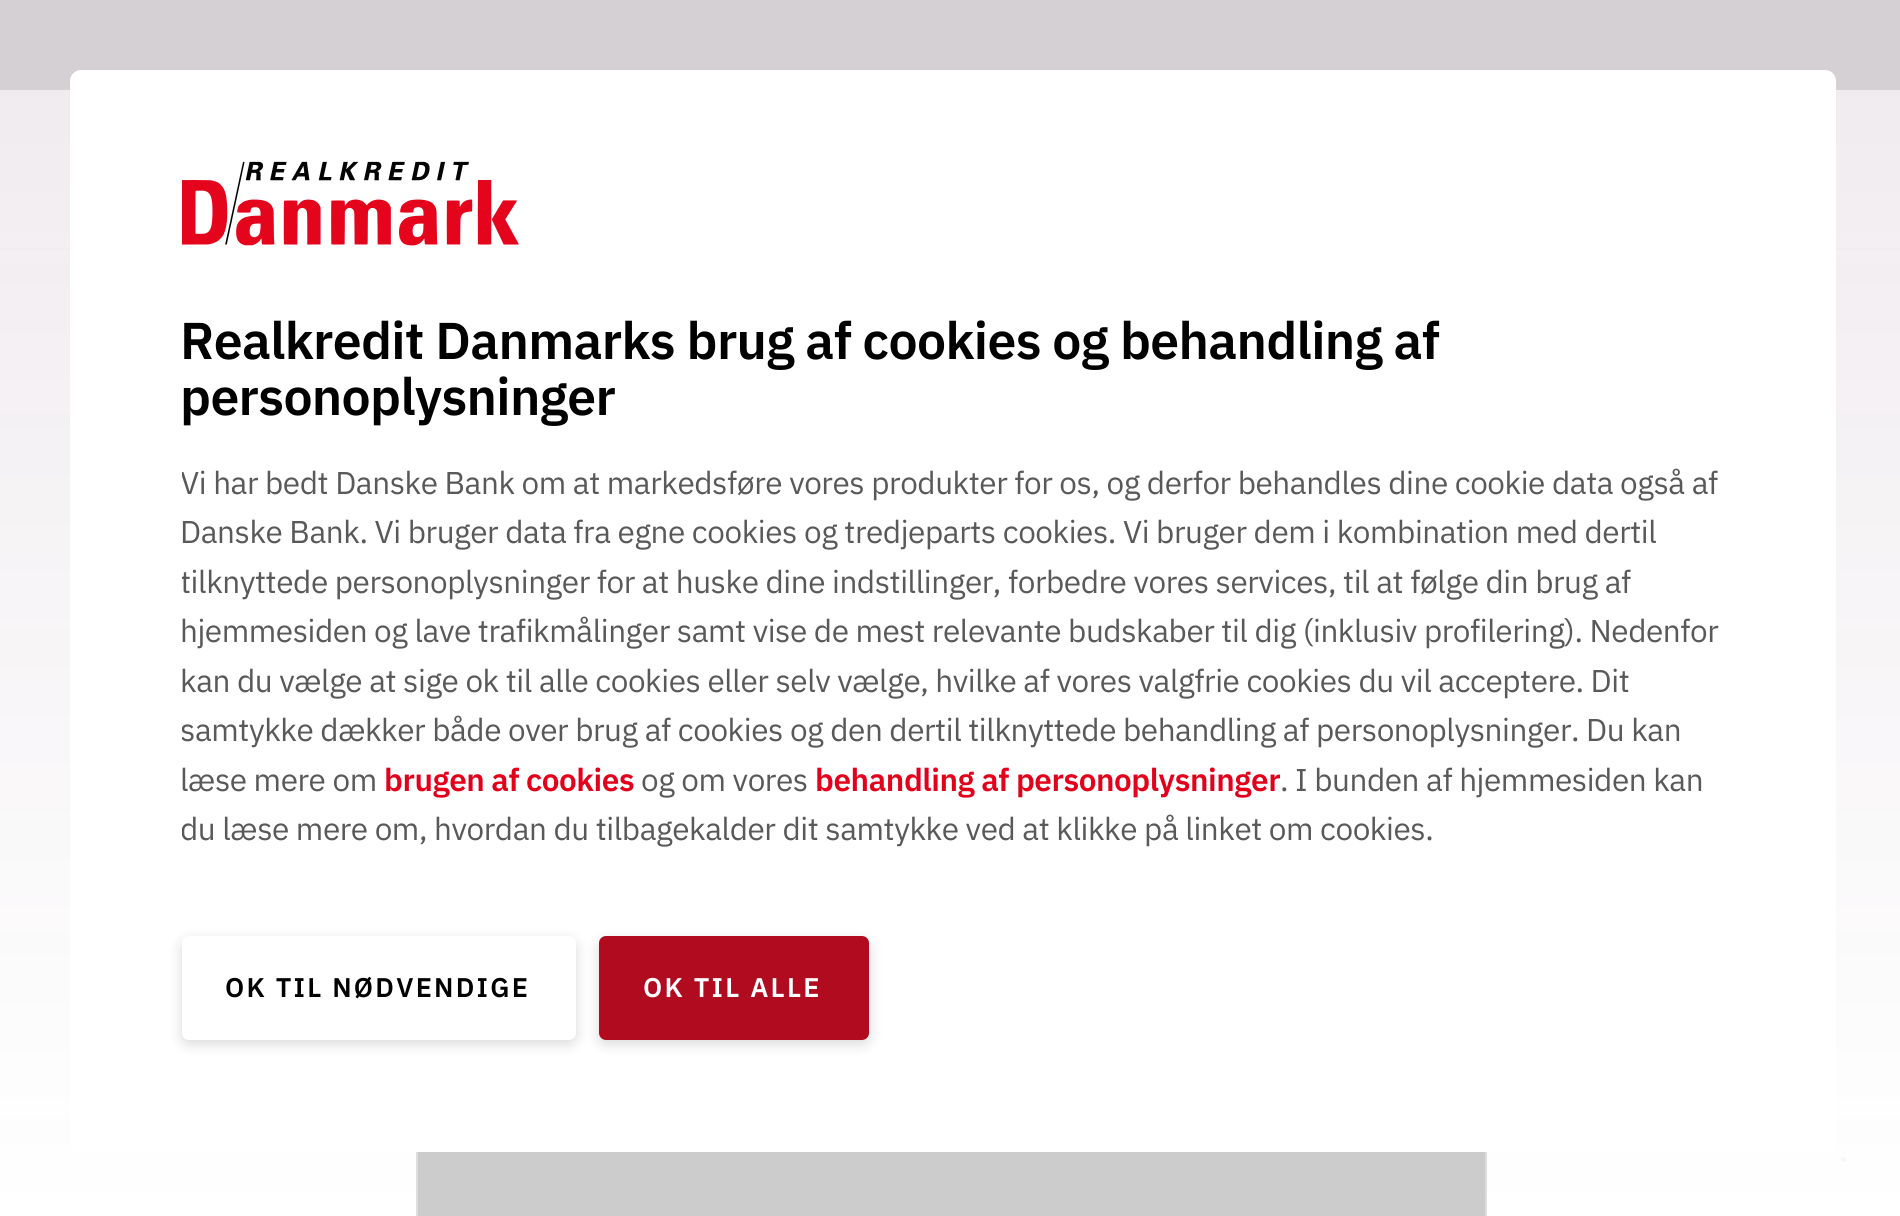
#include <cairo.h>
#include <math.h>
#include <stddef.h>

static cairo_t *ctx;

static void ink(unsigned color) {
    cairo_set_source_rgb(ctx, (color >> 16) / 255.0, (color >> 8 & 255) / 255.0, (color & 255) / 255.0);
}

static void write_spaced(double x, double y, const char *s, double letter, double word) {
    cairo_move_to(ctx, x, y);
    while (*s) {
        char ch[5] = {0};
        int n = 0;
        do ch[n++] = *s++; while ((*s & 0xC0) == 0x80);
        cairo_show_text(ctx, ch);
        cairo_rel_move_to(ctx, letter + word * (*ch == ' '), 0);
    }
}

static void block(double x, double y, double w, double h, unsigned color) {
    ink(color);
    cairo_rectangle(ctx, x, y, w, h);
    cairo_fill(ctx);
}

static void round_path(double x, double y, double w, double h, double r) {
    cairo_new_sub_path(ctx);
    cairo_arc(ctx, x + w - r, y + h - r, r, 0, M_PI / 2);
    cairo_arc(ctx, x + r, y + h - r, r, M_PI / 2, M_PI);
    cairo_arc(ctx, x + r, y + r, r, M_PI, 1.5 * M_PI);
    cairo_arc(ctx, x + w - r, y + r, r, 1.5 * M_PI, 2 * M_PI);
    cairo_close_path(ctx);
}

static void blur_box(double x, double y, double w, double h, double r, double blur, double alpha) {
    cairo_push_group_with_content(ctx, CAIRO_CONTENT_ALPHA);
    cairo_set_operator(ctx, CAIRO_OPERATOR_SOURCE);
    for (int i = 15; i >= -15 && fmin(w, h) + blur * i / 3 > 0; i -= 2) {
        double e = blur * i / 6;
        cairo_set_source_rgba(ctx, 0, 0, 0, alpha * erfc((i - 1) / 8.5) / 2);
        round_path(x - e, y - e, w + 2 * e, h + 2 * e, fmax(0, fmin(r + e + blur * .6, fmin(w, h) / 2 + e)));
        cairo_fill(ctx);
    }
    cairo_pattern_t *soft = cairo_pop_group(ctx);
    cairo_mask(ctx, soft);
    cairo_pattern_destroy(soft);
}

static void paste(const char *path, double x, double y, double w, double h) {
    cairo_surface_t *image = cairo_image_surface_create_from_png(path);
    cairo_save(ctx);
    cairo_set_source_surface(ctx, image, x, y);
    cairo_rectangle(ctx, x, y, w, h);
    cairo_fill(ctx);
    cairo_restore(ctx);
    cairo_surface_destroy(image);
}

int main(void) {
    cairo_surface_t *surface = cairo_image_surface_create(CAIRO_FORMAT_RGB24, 1900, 1216);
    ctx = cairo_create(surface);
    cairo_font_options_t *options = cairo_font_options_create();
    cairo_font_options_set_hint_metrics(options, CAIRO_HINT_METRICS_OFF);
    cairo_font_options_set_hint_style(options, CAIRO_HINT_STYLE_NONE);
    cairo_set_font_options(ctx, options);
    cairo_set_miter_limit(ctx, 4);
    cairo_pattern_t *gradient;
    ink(0xffffff);
    cairo_paint(ctx);
    block(0, 0, 1900, 90, 0x000000);
    block(0, 248, 1900, 2, 0xe6e6e6);
    block(1485, 1152, 2, 64, 0x595959);
    block(416, 1152, 2, 64, 0x595959);
    block(418, 1152, 1067, 64, 0x000000);
    ink(0xe0e0e0);
    cairo_arc(ctx, 1843.5, 1159.5, 2.5, 0, 2 * M_PI);
    cairo_fill(ctx);
    gradient = cairo_pattern_create_linear(951, 0, 951, 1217);
    cairo_pattern_add_color_stop_rgba(gradient, 0, 0.929, 0.906, 0.925, 0.9);
    cairo_pattern_add_color_stop_rgba(gradient, 1, 1, 1, 1, 0.8);
    cairo_pattern_add_color_stop_rgba(gradient, 1, 1, 1, 1, 0);
    cairo_set_source(ctx, gradient);
    cairo_pattern_destroy(gradient);
    cairo_rectangle(ctx, 0, 0, 1900, 1216);
    cairo_fill(ctx);
    ink(0xffffff);
    round_path(70, 70, 1766, 1082, 11);
    cairo_fill(ctx);
    paste("pic1.png", 182, 161, 337, 85);
    cairo_select_font_face(ctx, "IBM Plex Sans SemiBold", CAIRO_FONT_SLANT_NORMAL, CAIRO_FONT_WEIGHT_NORMAL);
    cairo_set_font_size(ctx, 51.75);
    ink(0x000000);
    write_spaced(180, 359, "Realkredit Danmarks brug af cookies og behandling af", -0.67, 0);
    write_spaced(180, 415, "personoplysninger", -0.67, 0);
    cairo_save(ctx);
    cairo_rectangle(ctx, 182, 268, 1542, 657);
    cairo_clip(ctx);
    cairo_select_font_face(ctx, "IBM Plex Sans", CAIRO_FONT_SLANT_NORMAL, CAIRO_FONT_WEIGHT_NORMAL);
    cairo_set_font_size(ctx, 31.5);
    ink(0x595959);
    write_spaced(180, 494, "Vi har bedt Danske Bank om at markedsføre vores produkter for os, og derfor behandles dine cookie data også af", -0.45, 0);
    cairo_restore(ctx);
    cairo_select_font_face(ctx, "IBM Plex Sans", CAIRO_FONT_SLANT_NORMAL, CAIRO_FONT_WEIGHT_NORMAL);
    cairo_set_font_size(ctx, 31.5);
    ink(0x595959);
    write_spaced(180, 543, "Danske Bank. Vi bruger data fra egne cookies og tredjeparts cookies. Vi bruger dem i kombination med dertil", -0.45, 0);
    cairo_save(ctx);
    cairo_rectangle(ctx, 182, 268, 1542, 657);
    cairo_clip(ctx);
    write_spaced(180, 593, "tilknyttede personoplysninger for at huske dine indstillinger, forbedre vores services, til at følge din brug af", -0.45, 0);
    cairo_restore(ctx);
    write_spaced(180, 642, "hjemmesiden og lave trafikmålinger samt vise de mest relevante budskaber til dig (inklusiv profilering). Nedenfor", -0.45, 0);
    write_spaced(180, 692, "kan du vælge at sige ok til alle cookies eller selv vælge, hvilke af vores valgfrie cookies du vil acceptere. Dit", -0.45, 0);
    cairo_save(ctx);
    cairo_rectangle(ctx, 182, 268, 1542, 657);
    cairo_clip(ctx);
    write_spaced(180, 741, "samtykke dækker både over brug af cookies og den dertil tilknyttede behandling af personoplysninger. Du kan", -0.45, 0);
    cairo_restore(ctx);
    write_spaced(180, 791, "læse mere om", -0.45, 0);
    cairo_select_font_face(ctx, "IBM Plex Sans SemiBold", CAIRO_FONT_SLANT_NORMAL, CAIRO_FONT_WEIGHT_NORMAL);
    ink(0xe2001a);
    write_spaced(384, 791, "brugen af cookies", -0.45, 0);
    cairo_select_font_face(ctx, "IBM Plex Sans", CAIRO_FONT_SLANT_NORMAL, CAIRO_FONT_WEIGHT_NORMAL);
    ink(0x595959);
    write_spaced(641, 791, "og om vores", -0.45, 0);
    cairo_select_font_face(ctx, "IBM Plex Sans SemiBold", CAIRO_FONT_SLANT_NORMAL, CAIRO_FONT_WEIGHT_NORMAL);
    ink(0xe2001a);
    write_spaced(815, 791, "behandling af personoplysninger", -0.45, 0);
    cairo_select_font_face(ctx, "IBM Plex Sans", CAIRO_FONT_SLANT_NORMAL, CAIRO_FONT_WEIGHT_NORMAL);
    ink(0x595959);
    write_spaced(1280, 791, ". I bunden af hjemmesiden kan", -0.45, 0);
    cairo_save(ctx);
    cairo_rectangle(ctx, 182, 268, 1542, 657);
    cairo_clip(ctx);
    write_spaced(180, 840, "du læse mere om, hvordan du tilbagekalder dit samtykke ved at klikke på linket om cookies.", -0.45, 0);
    cairo_restore(ctx);
    ink(0x000000);
    blur_box(182, 941, 394, 103, 7, 7, 0.15);
    ink(0xffffff);
    round_path(182, 936, 394, 104, 7);
    cairo_fill(ctx);
    cairo_select_font_face(ctx, "IBM Plex Sans SemiBold", CAIRO_FONT_SLANT_NORMAL, CAIRO_FONT_WEIGHT_NORMAL);
    cairo_set_font_size(ctx, 27);
    ink(0x000000);
    write_spaced(225, 997, "OK TIL NØDVENDIGE", 2.25, 0);
    cairo_save(ctx);
    cairo_set_fill_rule(ctx, CAIRO_FILL_RULE_EVEN_ODD);
    cairo_new_path(ctx);
    cairo_move_to(ctx, 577, 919);
    cairo_line_to(ctx, 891, 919);
    cairo_line_to(ctx, 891, 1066);
    cairo_line_to(ctx, 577, 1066);
    cairo_close_path(ctx);
    cairo_move_to(ctx, 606, 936);
    cairo_line_to(ctx, 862, 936);
    cairo_curve_to(ctx, 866, 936, 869, 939, 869, 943);
    cairo_line_to(ctx, 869, 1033);
    cairo_curve_to(ctx, 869, 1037, 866, 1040, 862, 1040);
    cairo_line_to(ctx, 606, 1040);
    cairo_curve_to(ctx, 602, 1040, 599, 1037, 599, 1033);
    cairo_line_to(ctx, 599, 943);
    cairo_curve_to(ctx, 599, 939, 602, 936, 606, 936);
    cairo_close_path(ctx);
    cairo_clip(ctx);
    ink(0x000000);
    blur_box(599, 941, 270, 103, 7, 7, 0.15);
    cairo_restore(ctx);
    ink(0xb10b1f);
    round_path(599, 936, 270, 104, 7);
    cairo_fill(ctx);
    ink(0xffffff);
    write_spaced(643, 997, "OK TIL ALLE", 2.25, 0);
    cairo_surface_write_to_png(surface, "screenshot.png");
    cairo_font_options_destroy(options);
    cairo_destroy(ctx);
    cairo_surface_destroy(surface);
    return 0;
}
